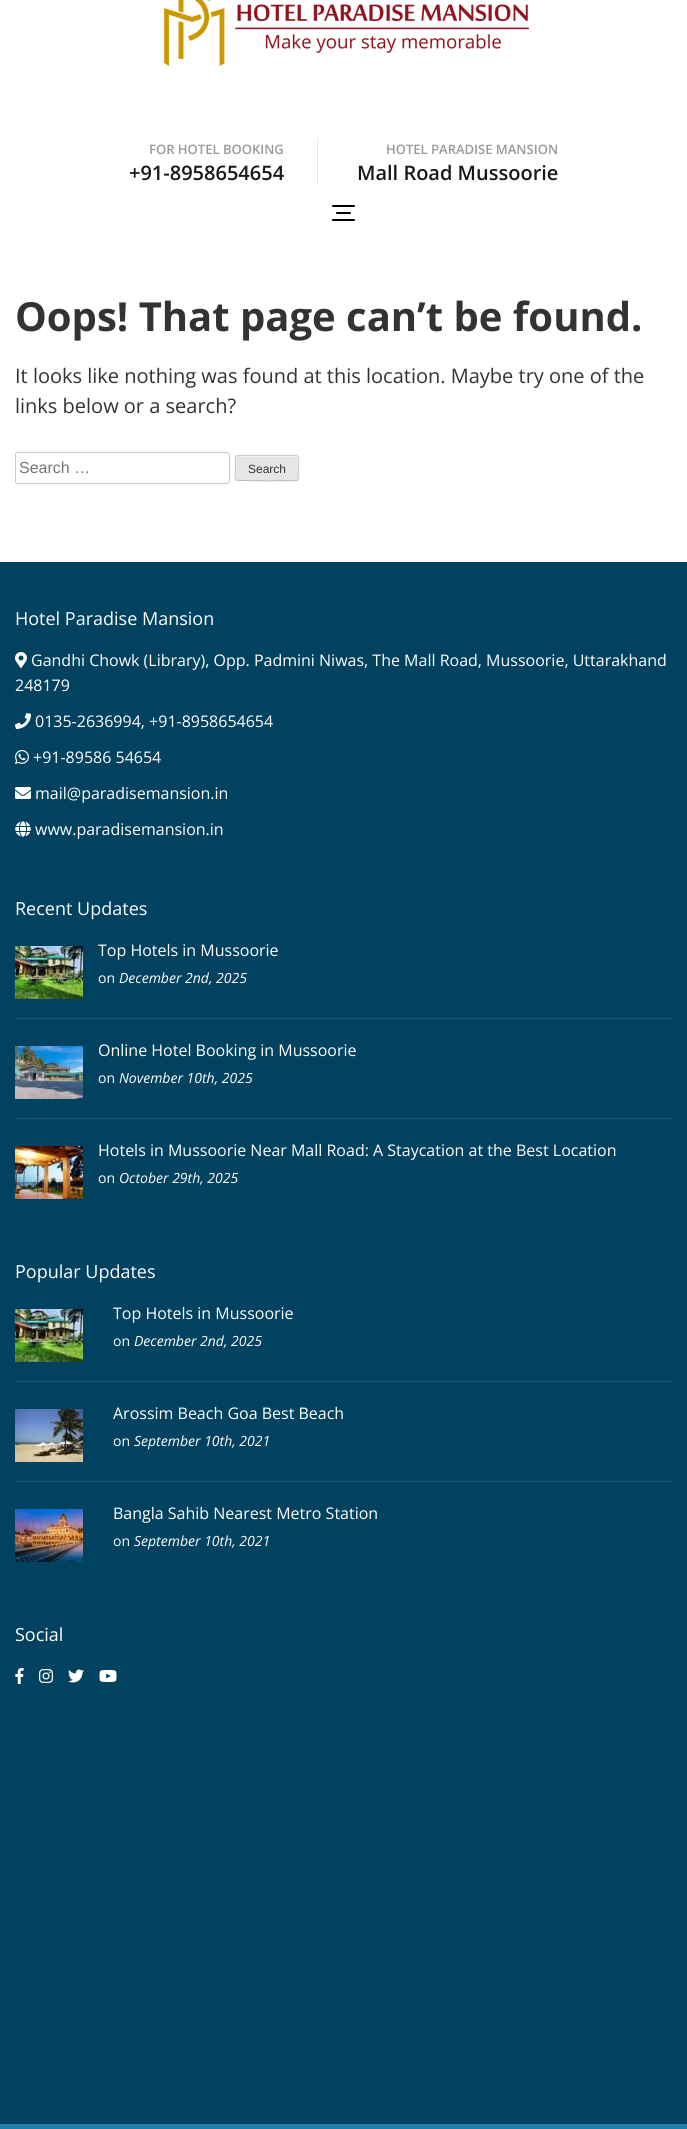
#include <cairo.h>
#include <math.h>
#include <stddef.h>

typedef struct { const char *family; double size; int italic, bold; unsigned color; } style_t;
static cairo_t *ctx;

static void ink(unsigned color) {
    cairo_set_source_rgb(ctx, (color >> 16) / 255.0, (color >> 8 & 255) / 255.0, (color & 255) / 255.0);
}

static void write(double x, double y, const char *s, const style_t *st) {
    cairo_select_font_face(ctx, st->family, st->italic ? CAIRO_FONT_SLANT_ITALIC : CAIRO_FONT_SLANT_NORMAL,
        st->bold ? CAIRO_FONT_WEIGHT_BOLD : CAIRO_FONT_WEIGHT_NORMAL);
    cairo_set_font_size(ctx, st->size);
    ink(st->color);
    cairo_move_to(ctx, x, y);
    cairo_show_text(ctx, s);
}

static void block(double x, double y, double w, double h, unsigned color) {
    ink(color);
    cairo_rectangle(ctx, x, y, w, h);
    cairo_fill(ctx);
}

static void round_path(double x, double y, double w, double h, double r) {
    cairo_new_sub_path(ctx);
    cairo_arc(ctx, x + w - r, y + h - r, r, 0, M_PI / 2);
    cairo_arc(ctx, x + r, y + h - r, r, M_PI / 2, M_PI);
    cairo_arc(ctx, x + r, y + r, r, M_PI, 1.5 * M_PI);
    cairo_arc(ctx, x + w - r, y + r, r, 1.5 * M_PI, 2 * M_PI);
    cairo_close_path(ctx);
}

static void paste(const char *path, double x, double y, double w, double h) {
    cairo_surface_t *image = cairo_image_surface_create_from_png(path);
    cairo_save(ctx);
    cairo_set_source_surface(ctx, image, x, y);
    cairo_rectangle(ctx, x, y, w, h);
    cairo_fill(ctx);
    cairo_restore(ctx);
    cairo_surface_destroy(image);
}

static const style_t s1 = {"Open Sans SemiBold", 13, 0, 0, 0x999999};
static const style_t s2 = {"Open Sans SemiBold", 20, 0, 0, 0x181818};
static const style_t s3 = {"Open Sans", 40, 0, 1, 0x333333};
static const style_t s4 = {"Open Sans", 20, 0, 0, 0x333333};
static const style_t s5 = {"Liberation Sans", 16, 0, 0, 0x757575};
static const style_t s6 = {"Liberation Sans", 12, 0, 0, 0x333333};
static const style_t s7 = {"Open Sans", 18, 0, 0, 0xffffff};
static const style_t s8 = {"Open Sans", 16, 0, 0, 0xffffff};
static const style_t s9 = {"Open Sans", 14, 0, 0, 0xffffff};
static const style_t s10 = {"Open Sans", 14, 1, 0, 0xffffff};

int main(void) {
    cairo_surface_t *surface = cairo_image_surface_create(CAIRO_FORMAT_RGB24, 687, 2129);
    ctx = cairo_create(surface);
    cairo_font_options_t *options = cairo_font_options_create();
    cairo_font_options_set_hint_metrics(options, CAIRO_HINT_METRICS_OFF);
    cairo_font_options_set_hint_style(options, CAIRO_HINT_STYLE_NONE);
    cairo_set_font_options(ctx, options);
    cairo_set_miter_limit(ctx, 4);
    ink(0xffffff);
    cairo_paint(ctx);
    paste("pic1.png", 163, 0, 366, 66);
    write(149, 154, "FOR HOTEL BOOKING", &s1);
    write(129, 180, "+91-8958654654", &s2);
    block(317, 138, 1, 46, 0xe6e6e6);
    write(386, 154, "HOTEL PARADISE MANSION", &s1);
    write(357, 180, "Mall Road Mussoorie", &s2);
    ink(0x000000);
    round_path(332, 205, 23, 2, 1);
    cairo_fill(ctx);
    round_path(336, 212, 15, 2, 1);
    cairo_fill(ctx);
    round_path(332, 219, 23, 2, 1);
    cairo_fill(ctx);
    write(15, 331, "Oops! That page can’t be found.", &s3);
    write(15, 383, "It looks like nothing was found at this location. Maybe try one of the", &s4);
    write(15, 413, "links below or a search?", &s4);
    round_path(15.5, 452.5, 214, 31, 2.5);
    ink(0xcccccc);
    cairo_set_line_width(ctx, 1);
    cairo_stroke(ctx);
    write(19, 473, "Search …", &s5);
    ink(0xe6e6e6);
    round_path(235, 455, 64, 26, 3);
    cairo_fill(ctx);
    ink(0xf3f3f3);
    cairo_new_path(ctx);
    cairo_move_to(ctx, 238, 457);
    cairo_line_to(ctx, 296, 457);
    cairo_curve_to(ctx, 297, 457, 298, 458, 298, 459);
    cairo_curve_to(ctx, 298, 453, 290, 456, 286, 456);
    cairo_line_to(ctx, 248, 456);
    cairo_curve_to(ctx, 244, 456, 236, 453, 236, 459);
    cairo_curve_to(ctx, 236, 458, 237, 457, 238, 457);
    cairo_close_path(ctx);
    cairo_fill(ctx);
    cairo_new_path(ctx);
    cairo_move_to(ctx, 298, 480);
    cairo_line_to(ctx, 296, 480.5);
    cairo_curve_to(ctx, 291, 481, 237.5, 481, 236.5, 480);
    cairo_line_to(ctx, 236, 480);
    ink(0xbbbbbb);
    cairo_stroke(ctx);
    cairo_new_path(ctx);
    cairo_move_to(ctx, 236, 480);
    cairo_curve_to(ctx, 234.5, 478, 235.5, 470.5, 235.5, 468);
    cairo_curve_to(ctx, 235.5, 453.5, 233, 455.5, 247.5, 455.5);
    cairo_line_to(ctx, 286.5, 455.5);
    cairo_curve_to(ctx, 301, 455.5, 298.5, 453.5, 298.5, 468);
    cairo_curve_to(ctx, 298.5, 470.5, 299.5, 478, 298, 480);
    ink(0xcccccc);
    cairo_stroke(ctx);
    write(248, 473, "Search", &s6);
    block(0, 562, 687, 1562, 0x004260);
    write(15, 625, "Hotel Paradise Mansion", &s7);
    paste("pic2.png", 15, 652, 12, 16);
    write(31, 666, "Gandhi Chowk (Library), Opp. Padmini Niwas, The Mall Road, Mussoorie, Uttarakhand", &s8);
    write(15, 691, "248179", &s8);
    paste("pic3.png", 15, 713, 16, 16);
    write(35, 727, "0135-2636994, +91-8958654654", &s8);
    paste("pic4.png", 15, 750, 14, 14);
    write(33, 763, "+91-89586 54654", &s8);
    paste("pic5.png", 15, 787, 16, 12);
    write(35, 799, "mail@paradisemansion.in", &s8);
    paste("pic6.png", 15, 821, 16, 16);
    write(35, 835, "www.paradisemansion.in", &s8);
    write(15, 915, "Recent Updates", &s7);
    block(15, 1018, 657, 1, 0x1a5570);
    paste("pic7.png", 15, 946, 68, 53);
    write(98, 956, "Top Hotels in Mussoorie", &s8);
    write(98, 983, "on", &s9);
    write(119, 983, "December 2nd, 2025", &s10);
    block(15, 1118, 657, 1, 0x1a5570);
    paste("pic8.png", 15, 1046, 68, 53);
    write(98, 1056, "Online Hotel Booking in Mussoorie", &s8);
    write(98, 1083, "on", &s9);
    write(119, 1083, "November 10th, 2025", &s10);
    paste("pic9.png", 15, 1146, 68, 53);
    write(98, 1156, "Hotels in Mussoorie Near Mall Road: A Staycation at the Best Location", &s8);
    write(98, 1183, "on", &s9);
    write(119, 1183, "October 29th, 2025", &s10);
    write(15, 1278, "Popular Updates", &s7);
    block(15, 1381, 657, 1, 0x1a5570);
    paste("pic7.png", 15, 1309, 68, 53);
    write(113, 1319, "Top Hotels in Mussoorie", &s8);
    write(113, 1346, "on", &s9);
    write(134, 1346, "December 2nd, 2025", &s10);
    block(15, 1481, 657, 1, 0x1a5570);
    paste("pic10.png", 15, 1409, 68, 53);
    write(113, 1419, "Arossim Beach Goa Best Beach", &s8);
    write(113, 1446, "on", &s9);
    write(134, 1446, "September 10th, 2021", &s10);
    paste("pic11.png", 15, 1509, 68, 53);
    write(113, 1519, "Bangla Sahib Nearest Metro Station", &s8);
    write(113, 1546, "on", &s9);
    write(134, 1546, "September 10th, 2021", &s10);
    write(15, 1641, "Social", &s7);
    paste("pic12.png", 15, 1668, 9, 16);
    paste("pic13.png", 39, 1669, 14, 14);
    paste("pic14.png", 68, 1669, 16, 14);
    paste("pic15.png", 99, 1670, 18, 12);
    block(0, 2124, 687, 5, 0x217fae);
    cairo_surface_write_to_png(surface, "screenshot.png");
    cairo_font_options_destroy(options);
    cairo_destroy(ctx);
    cairo_surface_destroy(surface);
    return 0;
}
